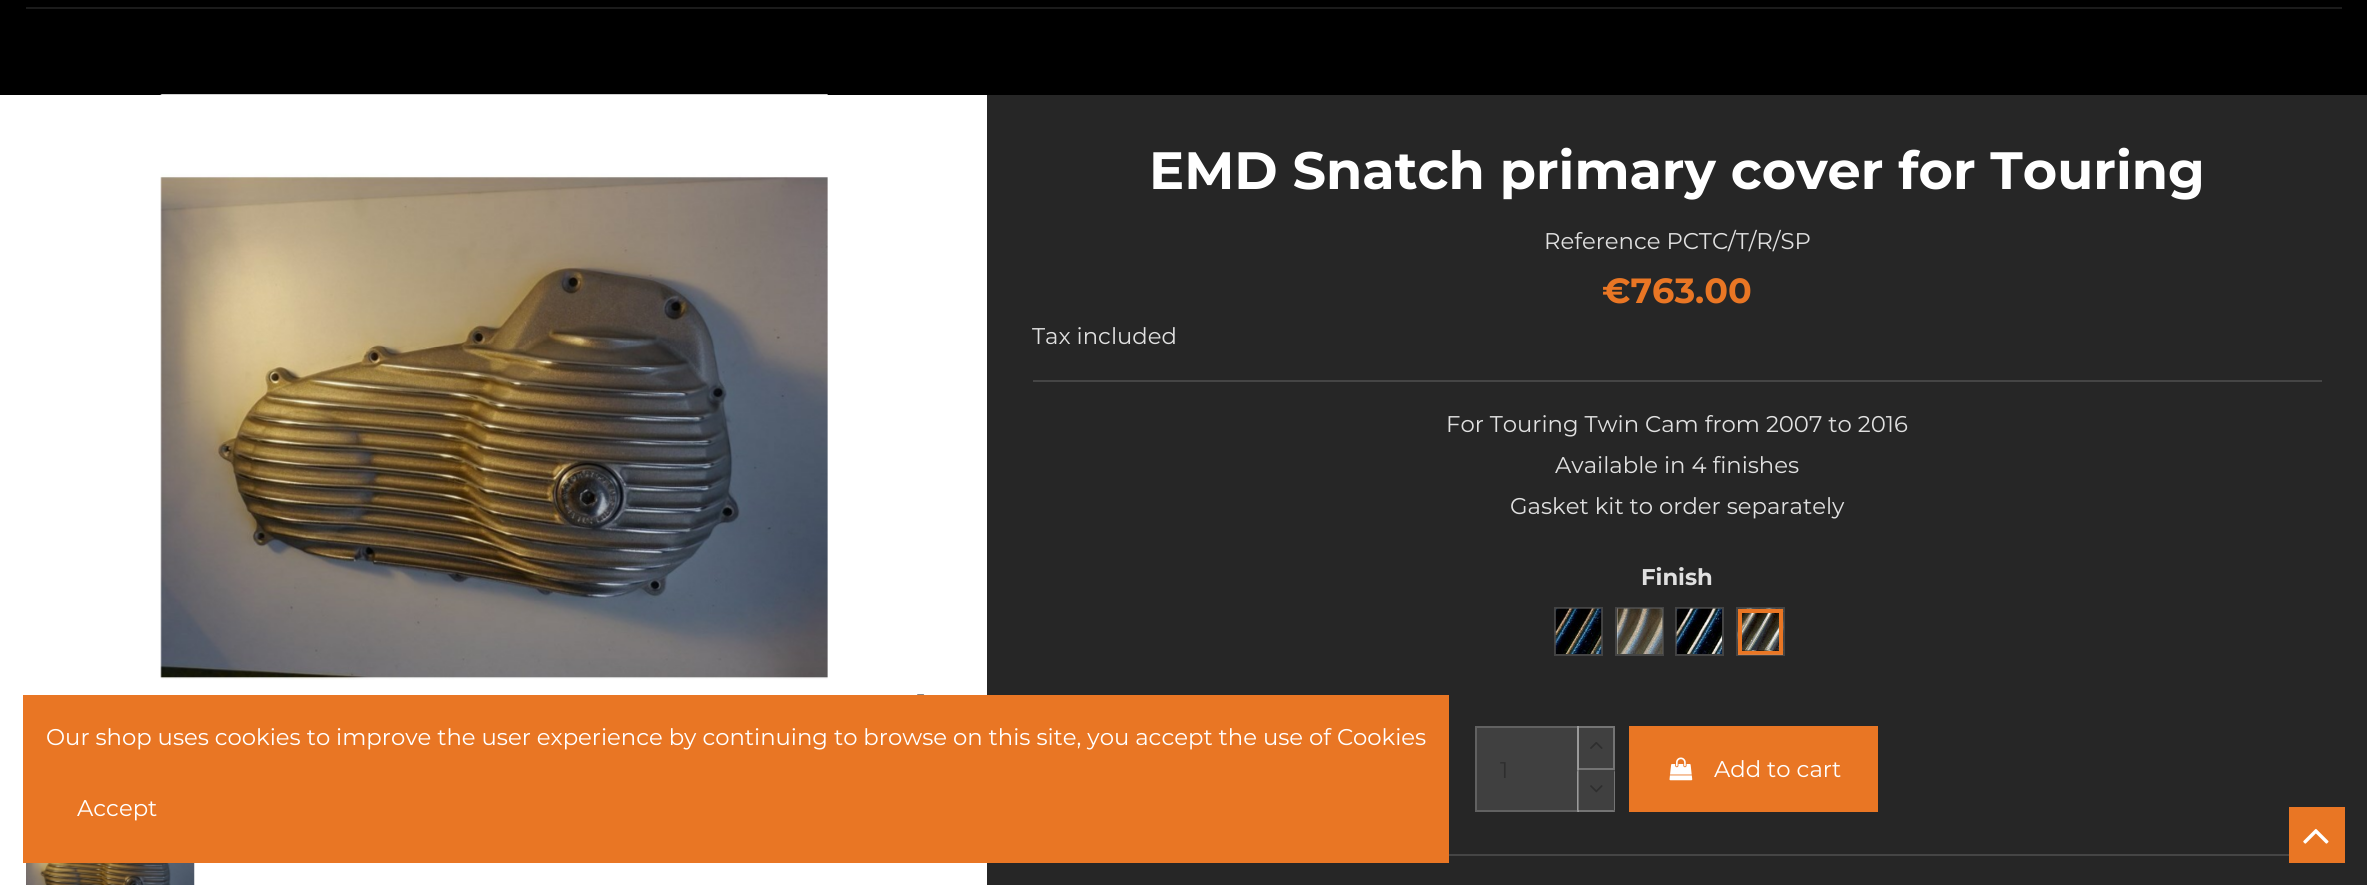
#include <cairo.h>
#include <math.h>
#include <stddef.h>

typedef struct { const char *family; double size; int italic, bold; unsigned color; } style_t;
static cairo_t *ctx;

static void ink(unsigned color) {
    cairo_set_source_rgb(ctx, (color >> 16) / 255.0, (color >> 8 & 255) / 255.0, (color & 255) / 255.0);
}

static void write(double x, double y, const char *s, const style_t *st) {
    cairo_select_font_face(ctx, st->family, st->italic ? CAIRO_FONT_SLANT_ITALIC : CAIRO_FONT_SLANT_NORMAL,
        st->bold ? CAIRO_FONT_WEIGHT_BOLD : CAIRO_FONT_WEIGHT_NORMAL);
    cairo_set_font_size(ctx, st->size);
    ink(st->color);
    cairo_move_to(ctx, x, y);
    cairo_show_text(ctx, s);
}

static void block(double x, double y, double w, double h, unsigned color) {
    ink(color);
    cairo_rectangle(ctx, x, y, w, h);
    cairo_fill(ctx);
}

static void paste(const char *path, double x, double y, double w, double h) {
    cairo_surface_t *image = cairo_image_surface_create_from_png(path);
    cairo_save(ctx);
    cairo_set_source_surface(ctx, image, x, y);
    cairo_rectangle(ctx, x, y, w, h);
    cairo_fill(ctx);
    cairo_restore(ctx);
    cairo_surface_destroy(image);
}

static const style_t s1 = {"Montserrat", 22.75, 0, 0, 0xffffff};
static const style_t s2 = {"Montserrat", 52.5, 0, 1, 0xffffff};
static const style_t s3 = {"Montserrat", 22.75, 0, 0, 0xe0e0e0};
static const style_t s4 = {"Montserrat", 35, 0, 1, 0xe97624};
static const style_t s5 = {"Montserrat", 22.75, 0, 1, 0xe0e0e0};
static const style_t s6 = {"Montserrat", 22.75, 0, 0, 0x2e2e2e};

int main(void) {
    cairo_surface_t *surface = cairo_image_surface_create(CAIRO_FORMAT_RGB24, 2367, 885);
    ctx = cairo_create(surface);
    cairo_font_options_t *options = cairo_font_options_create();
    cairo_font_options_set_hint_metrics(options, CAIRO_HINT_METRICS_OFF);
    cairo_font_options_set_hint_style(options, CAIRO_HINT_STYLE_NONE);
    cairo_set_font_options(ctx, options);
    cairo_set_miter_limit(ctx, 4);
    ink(0x000000);
    cairo_paint(ctx);
    block(0, 95, 987, 790, 0xffffff);
    block(987, 95, 1380, 790, 0x262626);
    block(23, 695, 1426, 168, 0xe97624);
    write(46, 745, "Our shop uses cookies to improve the user experience by continuing to browse on this site, you accept the use of Cookies", &s1);
    write(77, 816, "Accept", &s1);
    ink(0x1b1b1b);
    cairo_new_path(ctx);
    cairo_move_to(ctx, 26, -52);
    cairo_line_to(ctx, 26, 9);
    cairo_line_to(ctx, 2342, 9);
    cairo_line_to(ctx, 2342, -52);
    cairo_line_to(ctx, 2342, 7);
    cairo_line_to(ctx, 26, 7);
    cairo_close_path(ctx);
    cairo_fill(ctx);
    paste("pic1.png", 160, 94, 668, 586);
    paste("pic2.png", 917, 694, 8, 1);
    paste("pic3.png", 26, 863, 169, 22);
    block(1033, 380, 1289, 2, 0x454545);
    write(1149, 189, "EMD Snatch primary cover for Touring", &s2);
    write(1544, 249, "Reference PCTC/T/R/SP", &s3);
    write(1602, 303, "€763.00", &s4);
    write(1032, 344, "Tax included", &s3);
    write(1446, 432, "For Touring Twin Cam from 2007 to 2016", &s3);
    write(1555, 473, "Available in 4 finishes", &s3);
    write(1510, 514, "Gasket kit to order separately", &s3);
    write(1641, 585, "Finish", &s5);
    paste("pic4.png", 1555, 608, 47, 46);
    cairo_rectangle(ctx, 1555, 608, 47, 47);
    cairo_set_source_rgba(ctx, 0.627, 0.627, 0.627, 0.25);
    cairo_stroke(ctx);
    paste("pic5.png", 1617, 608, 46, 46);
    cairo_rectangle(ctx, 1616, 608, 47, 47);
    cairo_stroke(ctx);
    paste("pic6.png", 1676, 608, 46, 46);
    cairo_rectangle(ctx, 1676, 608, 47, 47);
    cairo_stroke(ctx);
    paste("pic7.png", 1737, 608, 47, 46);
    cairo_rectangle(ctx, 1740, 611, 41, 42);
    ink(0xe97624);
    cairo_set_line_width(ctx, 4);
    cairo_stroke(ctx);
    cairo_rectangle(ctx, 1737, 608, 47, 47);
    cairo_set_source_rgba(ctx, 0.627, 0.627, 0.627, 0.25);
    cairo_set_line_width(ctx, 2);
    cairo_stroke(ctx);
    ink(0x404040);
    cairo_rectangle(ctx, 1476, 727, 102, 84);
    cairo_fill_preserve(ctx);
    ink(0x616161);
    cairo_stroke(ctx);
    write(1500, 778, "1", &s6);
    cairo_set_source_rgba(ctx, 1, 1, 1, 0.12);
    cairo_rectangle(ctx, 1577, 726, 38, 44);
    cairo_fill(ctx);
    cairo_rectangle(ctx, 1578, 727, 36, 42);
    cairo_set_source_rgba(ctx, 1, 1, 1, 0.27);
    cairo_stroke(ctx);
    paste("pic8.png", 1590, 742, 13, 7);
    cairo_set_source_rgba(ctx, 1, 1, 1, 0.12);
    cairo_rectangle(ctx, 1577, 770, 38, 42);
    cairo_fill(ctx);
    ink(0x747474);
    cairo_new_path(ctx);
    cairo_move_to(ctx, 1615, 770);
    cairo_line_to(ctx, 1615, 812);
    cairo_line_to(ctx, 1614, 810);
    cairo_line_to(ctx, 1614, 772);
    cairo_close_path(ctx);
    cairo_fill(ctx);
    cairo_set_source_rgba(ctx, 1, 1, 1, 0.27);
    cairo_new_path(ctx);
    cairo_move_to(ctx, 1615, 812);
    cairo_line_to(ctx, 1577, 812);
    cairo_line_to(ctx, 1578.5, 810);
    cairo_line_to(ctx, 1613.5, 810);
    cairo_close_path(ctx);
    cairo_fill(ctx);
    ink(0x9a9a9a);
    cairo_new_path(ctx);
    cairo_move_to(ctx, 1577, 812);
    cairo_line_to(ctx, 1577, 770);
    cairo_line_to(ctx, 1578, 772);
    cairo_line_to(ctx, 1578, 810);
    cairo_close_path(ctx);
    cairo_fill(ctx);
    paste("pic9.png", 1590, 785, 13, 8);
    block(1629, 726, 249, 86, 0xe97624);
    paste("pic10.png", 1669, 757, 24, 24);
    write(1714, 777, "Add to cart", &s1);
    block(1449, 854, 840, 2, 0x454545);
    block(2289, 807, 56, 56, 0xe97624);
    paste("pic11.png", 2303, 828, 26, 16);
    cairo_surface_write_to_png(surface, "screenshot.png");
    cairo_font_options_destroy(options);
    cairo_destroy(ctx);
    cairo_surface_destroy(surface);
    return 0;
}
